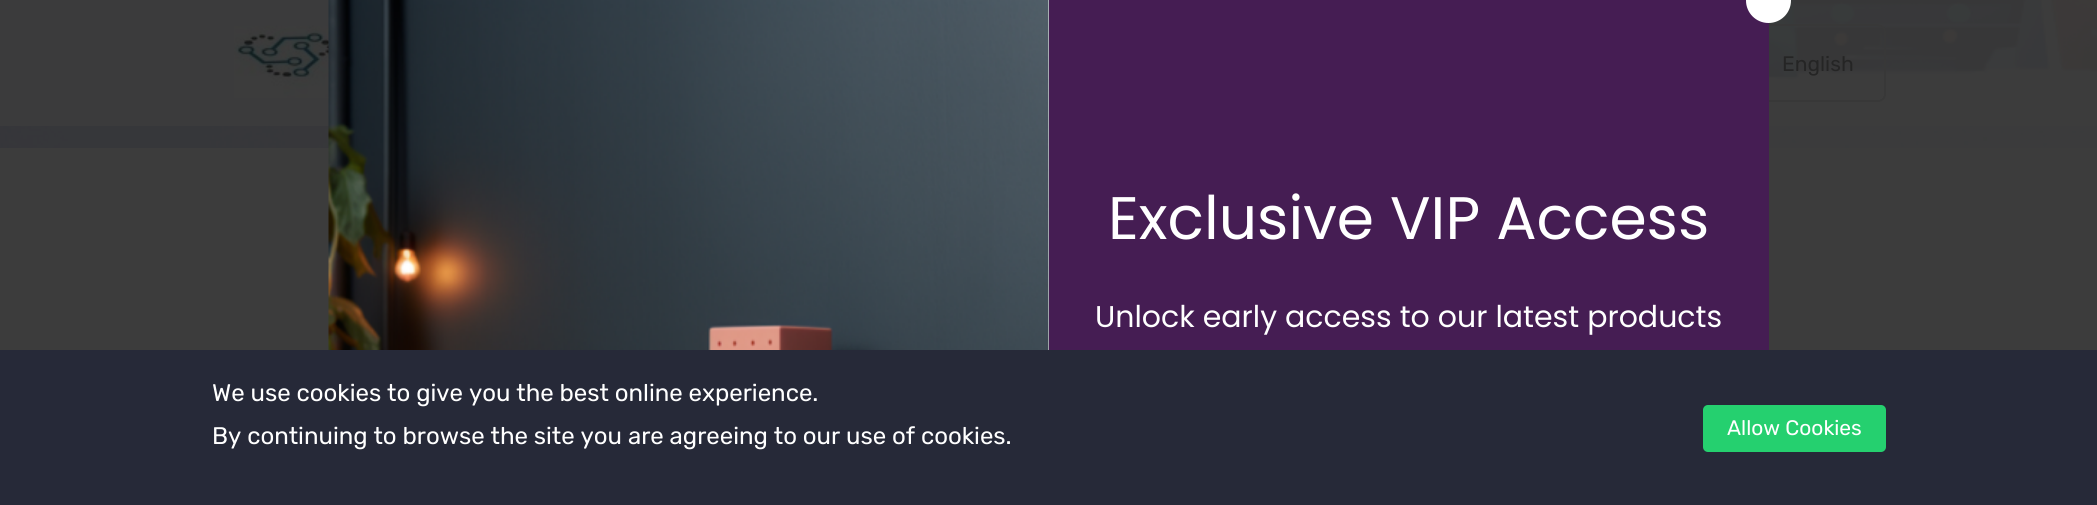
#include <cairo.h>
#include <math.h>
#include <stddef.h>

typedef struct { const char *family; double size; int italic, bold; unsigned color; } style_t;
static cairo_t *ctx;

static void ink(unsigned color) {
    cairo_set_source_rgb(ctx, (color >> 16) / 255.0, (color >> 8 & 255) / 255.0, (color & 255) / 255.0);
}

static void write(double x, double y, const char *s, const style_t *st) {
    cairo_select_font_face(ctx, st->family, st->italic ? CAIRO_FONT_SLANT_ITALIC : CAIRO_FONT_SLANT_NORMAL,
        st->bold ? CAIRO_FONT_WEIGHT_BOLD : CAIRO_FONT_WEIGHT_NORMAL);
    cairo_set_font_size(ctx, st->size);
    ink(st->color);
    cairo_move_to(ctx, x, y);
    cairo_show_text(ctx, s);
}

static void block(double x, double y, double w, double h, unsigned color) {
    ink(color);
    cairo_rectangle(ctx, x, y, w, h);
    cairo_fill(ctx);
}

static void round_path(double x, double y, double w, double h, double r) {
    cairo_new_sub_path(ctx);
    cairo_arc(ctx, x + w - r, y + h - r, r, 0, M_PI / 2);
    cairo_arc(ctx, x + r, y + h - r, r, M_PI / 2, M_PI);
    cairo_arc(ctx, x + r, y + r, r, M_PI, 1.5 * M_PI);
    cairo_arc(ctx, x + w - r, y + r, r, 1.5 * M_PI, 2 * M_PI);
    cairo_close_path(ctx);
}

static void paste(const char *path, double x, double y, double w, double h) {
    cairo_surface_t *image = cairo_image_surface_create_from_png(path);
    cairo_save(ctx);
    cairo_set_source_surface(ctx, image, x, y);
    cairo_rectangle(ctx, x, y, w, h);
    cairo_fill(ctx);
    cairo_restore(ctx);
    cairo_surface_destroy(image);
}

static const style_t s1 = {"Rubik", 21, 0, 0, 0x252525};
static const style_t s2 = {"Poppins", 60, 0, 0, 0xffffff};
static const style_t s3 = {"Poppins", 30, 0, 0, 0xffffff};
static const style_t s4 = {"Rubik", 24, 0, 0, 0xffffff};
static const style_t s5 = {"Rubik", 21, 0, 0, 0xffffff};

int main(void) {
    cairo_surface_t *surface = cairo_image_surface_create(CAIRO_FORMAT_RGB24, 2097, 505);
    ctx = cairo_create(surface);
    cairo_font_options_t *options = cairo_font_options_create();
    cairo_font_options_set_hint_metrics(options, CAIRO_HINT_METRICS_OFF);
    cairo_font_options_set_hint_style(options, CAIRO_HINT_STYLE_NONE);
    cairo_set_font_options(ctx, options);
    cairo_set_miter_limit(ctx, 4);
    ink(0x3c3c3c);
    cairo_paint(ctx);
    paste("pic1.png", 0, 0, 2097, 148);
    cairo_set_source_rgba(ctx, 0.235, 0.235, 0.235, 0.9);
    cairo_rectangle(ctx, 0, 0, 2097, 126);
    cairo_fill(ctx);
    paste("pic2.png", 234, 25, 95, 73);
    round_path(1729, 25, 156, 76, 7);
    ink(0x383838);
    cairo_stroke(ctx);
    write(1782, 71, "English", &s1);
    block(1049, 0, 720, 350, 0x451d53);
    ink(0xffffff);
    cairo_new_path(ctx);
    cairo_arc(ctx, 1768.5, 0.5, 22.5, 0, 2 * M_PI);
    cairo_fill(ctx);
    block(1048, 0, 1, 350, 0xffffff);
    paste("pic3.png", 328, 0, 721, 350);
    write(1108, 239, "Exclusive VIP Access", &s2);
    write(1095, 327, "Unlock early access to our latest products", &s3);
    block(0, 350, 2097, 155, 0x262938);
    write(212, 401, "We use cookies to give you the best online experience.", &s4);
    write(212, 444, "By continuing to browse the site you are agreeing to our use of cookies.", &s4);
    ink(0x25d06f);
    round_path(1703, 405, 183, 47, 5);
    cairo_fill(ctx);
    write(1727, 435, "Allow Cookies", &s5);
    cairo_surface_write_to_png(surface, "screenshot.png");
    cairo_font_options_destroy(options);
    cairo_destroy(ctx);
    cairo_surface_destroy(surface);
    return 0;
}
